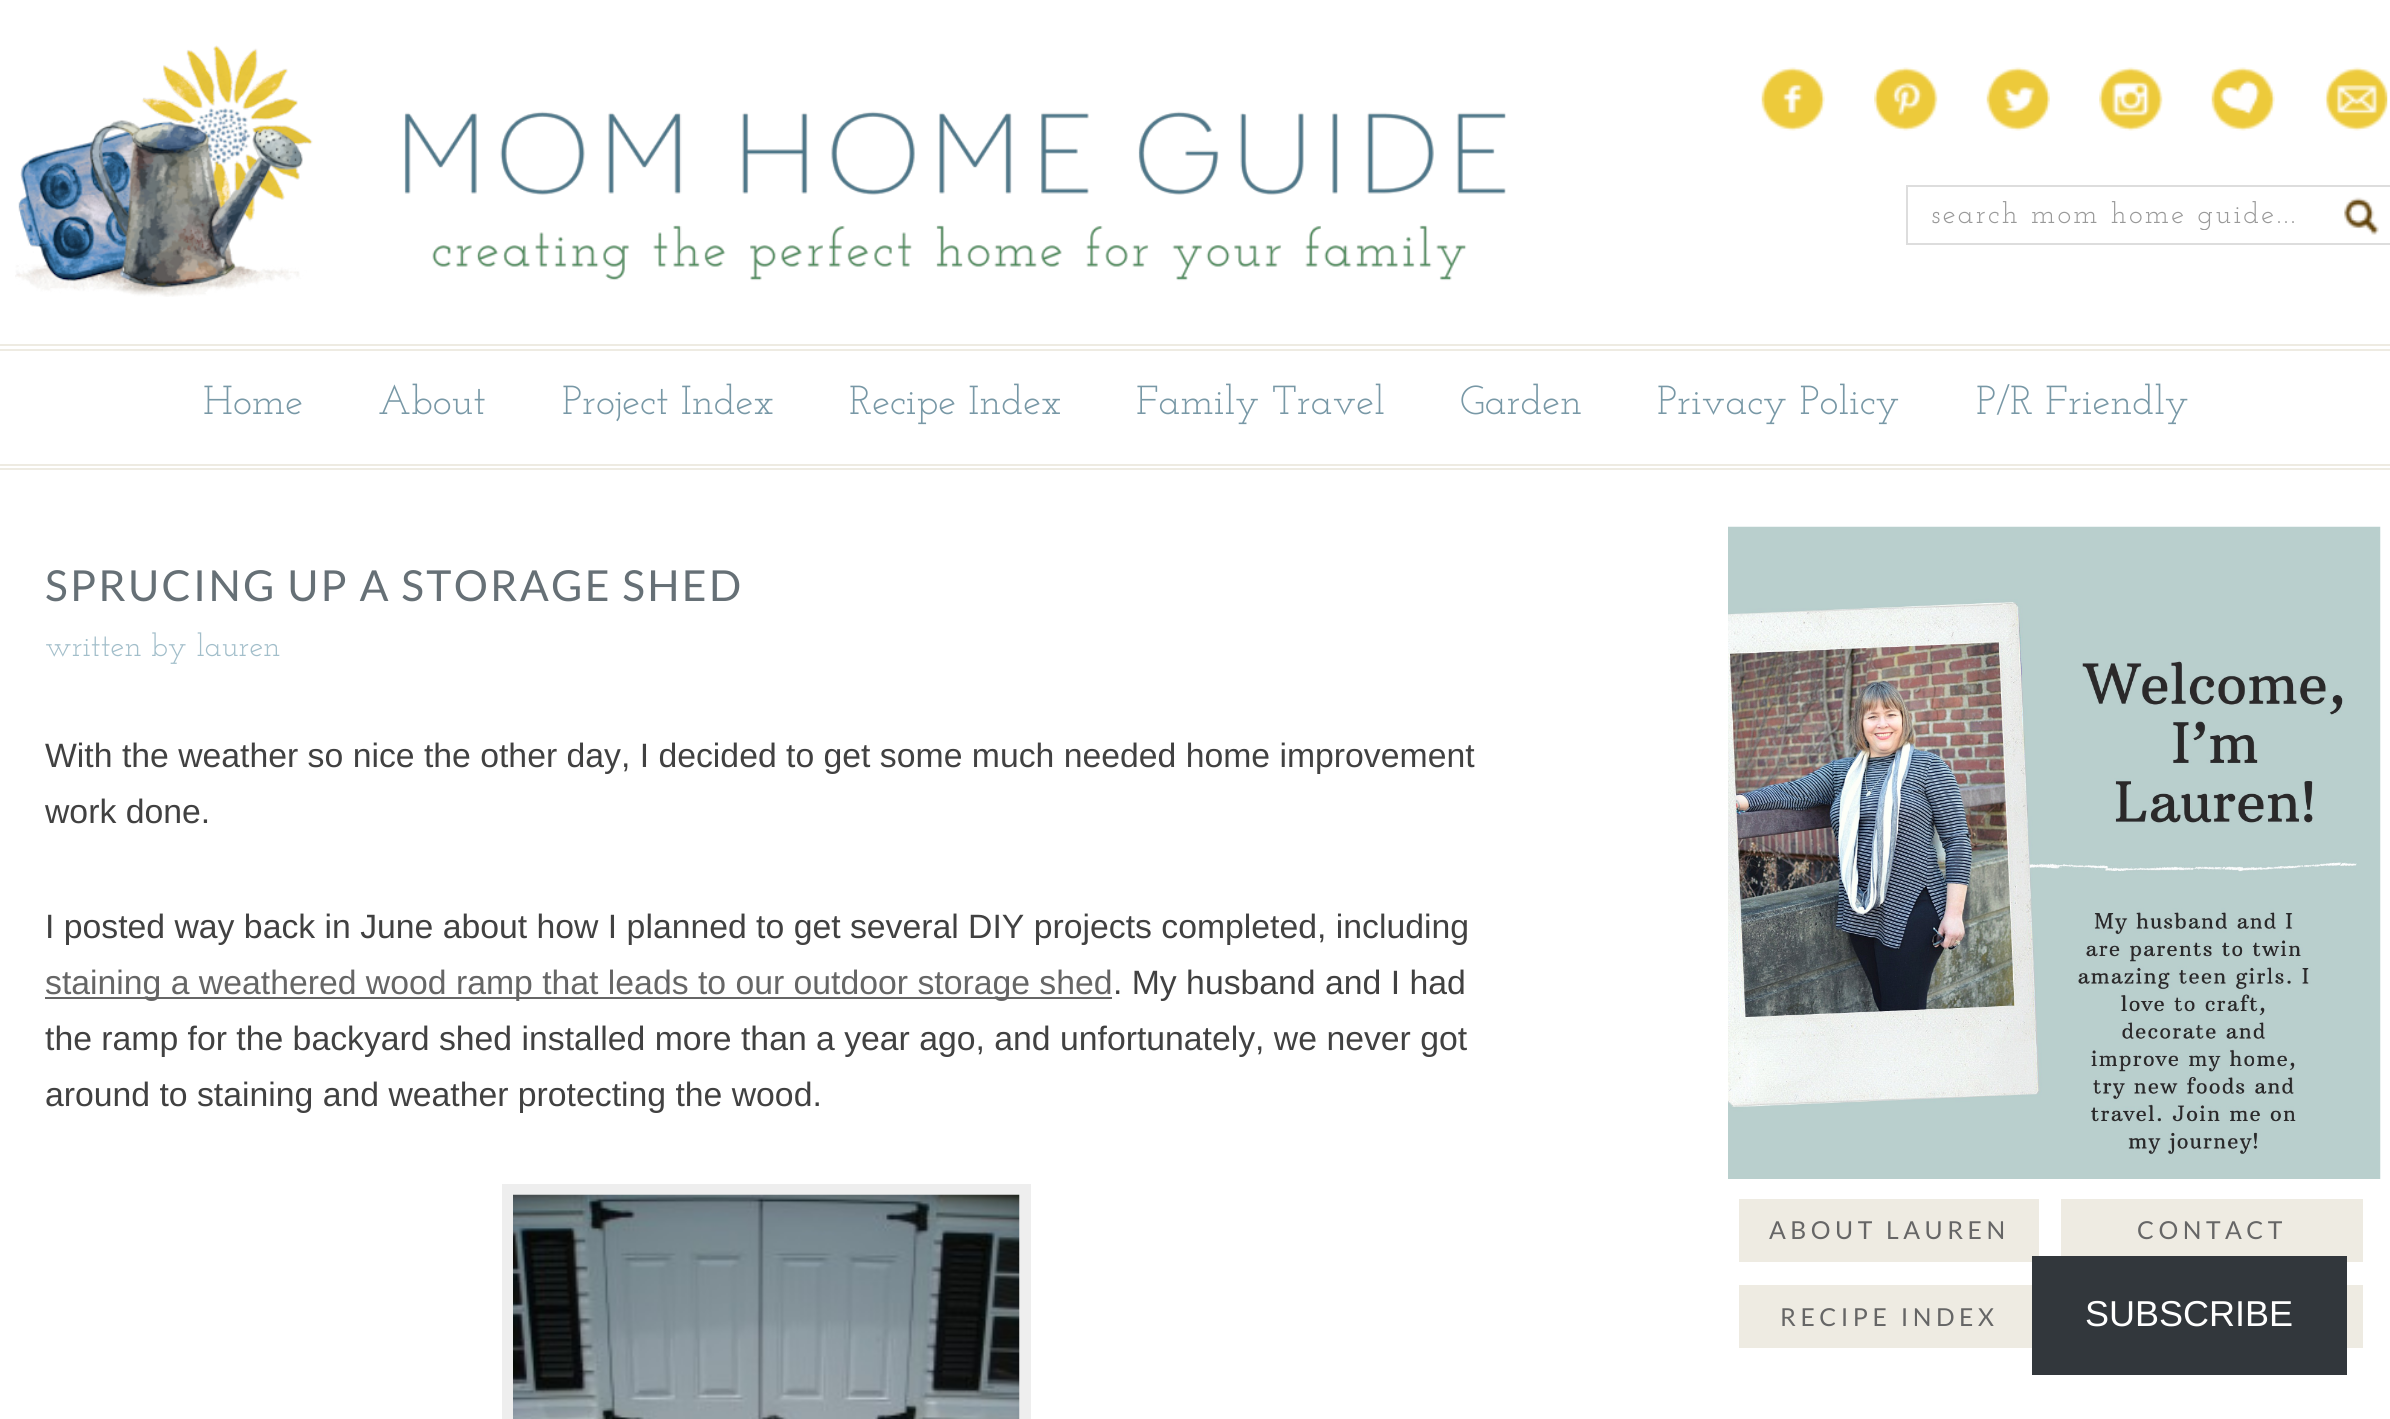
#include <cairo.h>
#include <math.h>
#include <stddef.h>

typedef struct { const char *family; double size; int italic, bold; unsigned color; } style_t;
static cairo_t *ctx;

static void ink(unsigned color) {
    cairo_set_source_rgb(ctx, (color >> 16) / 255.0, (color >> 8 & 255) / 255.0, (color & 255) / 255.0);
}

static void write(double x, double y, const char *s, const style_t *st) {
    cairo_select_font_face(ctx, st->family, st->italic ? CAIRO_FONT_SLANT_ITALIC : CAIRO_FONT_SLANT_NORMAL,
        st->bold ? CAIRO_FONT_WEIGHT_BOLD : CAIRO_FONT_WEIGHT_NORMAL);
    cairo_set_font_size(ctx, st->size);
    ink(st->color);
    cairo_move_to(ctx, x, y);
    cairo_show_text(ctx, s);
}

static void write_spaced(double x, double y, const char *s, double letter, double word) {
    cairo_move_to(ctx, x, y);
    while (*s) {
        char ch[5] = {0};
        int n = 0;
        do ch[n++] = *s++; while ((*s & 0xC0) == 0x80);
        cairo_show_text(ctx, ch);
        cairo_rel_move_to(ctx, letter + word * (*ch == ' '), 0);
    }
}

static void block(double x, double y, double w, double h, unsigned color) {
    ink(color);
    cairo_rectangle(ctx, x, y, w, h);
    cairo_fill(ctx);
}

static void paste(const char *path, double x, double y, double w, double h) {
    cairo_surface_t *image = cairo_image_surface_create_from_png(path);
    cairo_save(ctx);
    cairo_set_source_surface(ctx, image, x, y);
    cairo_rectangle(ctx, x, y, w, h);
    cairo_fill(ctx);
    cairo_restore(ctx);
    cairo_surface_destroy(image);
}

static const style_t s1 = {"Josefin Slab", 40.5, 0, 0, 0x7898a6};
static const style_t s2 = {"Josefin Slab", 31.5, 0, 0, 0xa2beca};
static const style_t s3 = {"Liberation Sans", 33.75, 0, 0, 0x414141};
static const style_t s4 = {"Liberation Sans", 33.75, 0, 0, 0x666666};
static const style_t s5 = {"Liberation Sans", 36, 0, 0, 0xffffff};

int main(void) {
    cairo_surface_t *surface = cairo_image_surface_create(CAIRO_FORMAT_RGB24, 2390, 1419);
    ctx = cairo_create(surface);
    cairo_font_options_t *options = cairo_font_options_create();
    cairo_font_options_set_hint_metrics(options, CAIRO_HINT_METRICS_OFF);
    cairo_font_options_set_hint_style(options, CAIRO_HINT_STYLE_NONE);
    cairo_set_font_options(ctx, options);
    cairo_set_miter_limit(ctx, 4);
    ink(0xffffff);
    cairo_paint(ctx);
    paste("pic1.png", 15, 45, 1491, 252);
    paste("pic2.png", 1761, 67, 64, 64);
    paste("pic3.png", 1874, 67, 64, 64);
    paste("pic4.png", 1986, 67, 64, 64);
    paste("pic5.png", 2099, 67, 64, 64);
    paste("pic6.png", 2211, 67, 64, 64);
    paste("pic7.png", 2324, 67, 64, 64);
    paste("pic8.png", 2344, 197, 35, 38);
    cairo_rectangle(ctx, 1907, 186, 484, 58);
    ink(0xdddddd);
    cairo_stroke(ctx);
    cairo_save(ctx);
    cairo_rectangle(ctx, 1931, 200, 380, 30);
    cairo_clip(ctx);
    cairo_select_font_face(ctx, "Josefin Slab", CAIRO_FONT_SLANT_NORMAL, CAIRO_FONT_WEIGHT_NORMAL);
    cairo_set_font_size(ctx, 29.25);
    ink(0x999999);
    write_spaced(1931, 223, "search mom home guide...", 2.25, 0);
    cairo_restore(ctx);
    block(0, 344, 2390, 2, 0xeeebe2);
    block(0, 349, 2390, 2, 0xeeebe2);
    block(0, 464, 2390, 2, 0xeeebe2);
    block(0, 468, 2390, 2, 0xeeebe2);
    write(203, 414, "Home", &s1);
    write(378, 414, "About", &s1);
    write(562, 414, "Project Index", &s1);
    write(849, 414, "Recipe Index", &s1);
    write(1136, 414, "Family Travel", &s1);
    write(1460, 414, "Garden", &s1);
    write(1657, 414, "Privacy Policy", &s1);
    write(1976, 414, "P/R Friendly", &s1);
    cairo_select_font_face(ctx, "Lato", CAIRO_FONT_SLANT_NORMAL, CAIRO_FONT_WEIGHT_NORMAL);
    cairo_set_font_size(ctx, 42.75);
    ink(0x667076);
    write_spaced(45, 601, "SPRUCING UP A STORAGE SHED", 2.25, 0);
    write(45, 656, "written by lauren", &s2);
    write(45, 767, "With the weather so nice the other day, I decided to get some much needed home improvement", &s3);
    write(45, 823, "work done.", &s3);
    write(45, 938, "I posted way back in June about how I planned to get several DIY projects completed, including", &s3);
    block(45, 997, 1067, 2, 0x666666);
    write(45, 994, "staining a weathered wood ramp that leads to our outdoor storage shed", &s4);
    write(1113, 994, ". My husband and I had", &s3);
    write(45, 1050, "the ramp for the backyard shed installed more than a year ago, and unfortunately, we never got", &s3);
    write(45, 1106, "around to staining and weather protecting the wood.", &s3);
    block(502, 1184, 529, 235, 0xeeeeee);
    paste("pic9.png", 513, 1194, 507, 225);
    paste("pic10.png", 1728, 526, 653, 653);
    block(1739, 1199, 300, 63, 0xeeebe2);
    cairo_select_font_face(ctx, "Lato", CAIRO_FONT_SLANT_NORMAL, CAIRO_FONT_WEIGHT_NORMAL);
    cairo_set_font_size(ctx, 24.75);
    ink(0x666666);
    write_spaced(1769, 1239, "ABOUT LAUREN", 4.5, 0);
    block(2061, 1199, 302, 63, 0xeeebe2);
    ink(0x666666);
    write_spaced(2137, 1239, "CONTACT", 4.5, 0);
    block(1739, 1285, 293, 63, 0xeeebe2);
    ink(0x666666);
    write_spaced(1780, 1326, "RECIPE INDEX", 4.5, 0);
    block(2347, 1285, 16, 63, 0xeeebe2);
    block(2032, 1256, 315, 119, 0x32373c);
    write(2085, 1326, "SUBSCRIBE", &s5);
    cairo_surface_write_to_png(surface, "screenshot.png");
    cairo_font_options_destroy(options);
    cairo_destroy(ctx);
    cairo_surface_destroy(surface);
    return 0;
}
